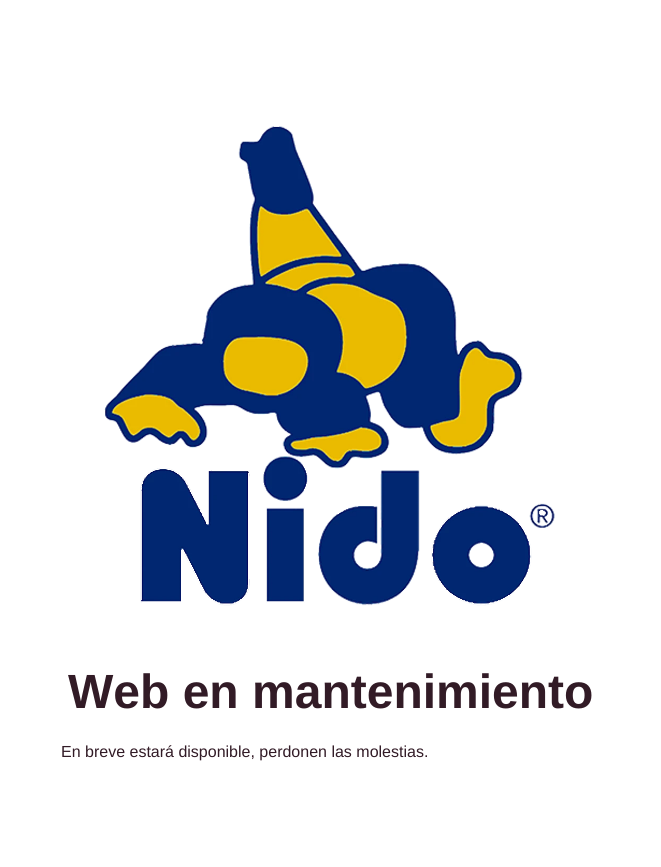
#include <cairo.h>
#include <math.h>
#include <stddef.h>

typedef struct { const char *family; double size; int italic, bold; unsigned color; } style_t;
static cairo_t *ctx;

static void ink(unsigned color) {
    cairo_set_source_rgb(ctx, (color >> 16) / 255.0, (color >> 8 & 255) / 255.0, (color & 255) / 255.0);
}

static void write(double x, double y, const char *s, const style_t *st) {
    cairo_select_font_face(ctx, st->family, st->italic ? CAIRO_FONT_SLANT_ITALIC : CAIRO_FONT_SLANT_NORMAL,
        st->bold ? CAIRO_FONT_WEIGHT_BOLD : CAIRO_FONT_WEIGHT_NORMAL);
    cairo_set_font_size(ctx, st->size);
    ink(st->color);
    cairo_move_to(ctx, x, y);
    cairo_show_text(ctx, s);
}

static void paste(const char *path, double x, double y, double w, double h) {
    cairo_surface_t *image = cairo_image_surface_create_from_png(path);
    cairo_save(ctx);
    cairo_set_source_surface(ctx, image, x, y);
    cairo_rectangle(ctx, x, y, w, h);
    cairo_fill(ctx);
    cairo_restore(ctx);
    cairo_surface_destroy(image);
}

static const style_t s1 = {"Liberation Sans", 48, 0, 1, 0x321b26};
static const style_t s2 = {"Liberation Sans", 16, 0, 0, 0x321b26};

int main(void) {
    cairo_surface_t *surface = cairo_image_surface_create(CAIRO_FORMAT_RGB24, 661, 867);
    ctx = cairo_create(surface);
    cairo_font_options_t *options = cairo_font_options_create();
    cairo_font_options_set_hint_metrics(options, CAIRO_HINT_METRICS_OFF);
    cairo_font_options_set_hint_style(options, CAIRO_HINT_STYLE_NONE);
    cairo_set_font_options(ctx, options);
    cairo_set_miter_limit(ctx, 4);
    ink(0xffffff);
    cairo_paint(ctx);
    paste("pic1.png", 104, 126, 451, 480);
    write(68, 708, "Web en mantenimiento", &s1);
    write(61, 757, "En breve estará disponible, perdonen las molestias.", &s2);
    cairo_surface_write_to_png(surface, "screenshot.png");
    cairo_font_options_destroy(options);
    cairo_destroy(ctx);
    cairo_surface_destroy(surface);
    return 0;
}
